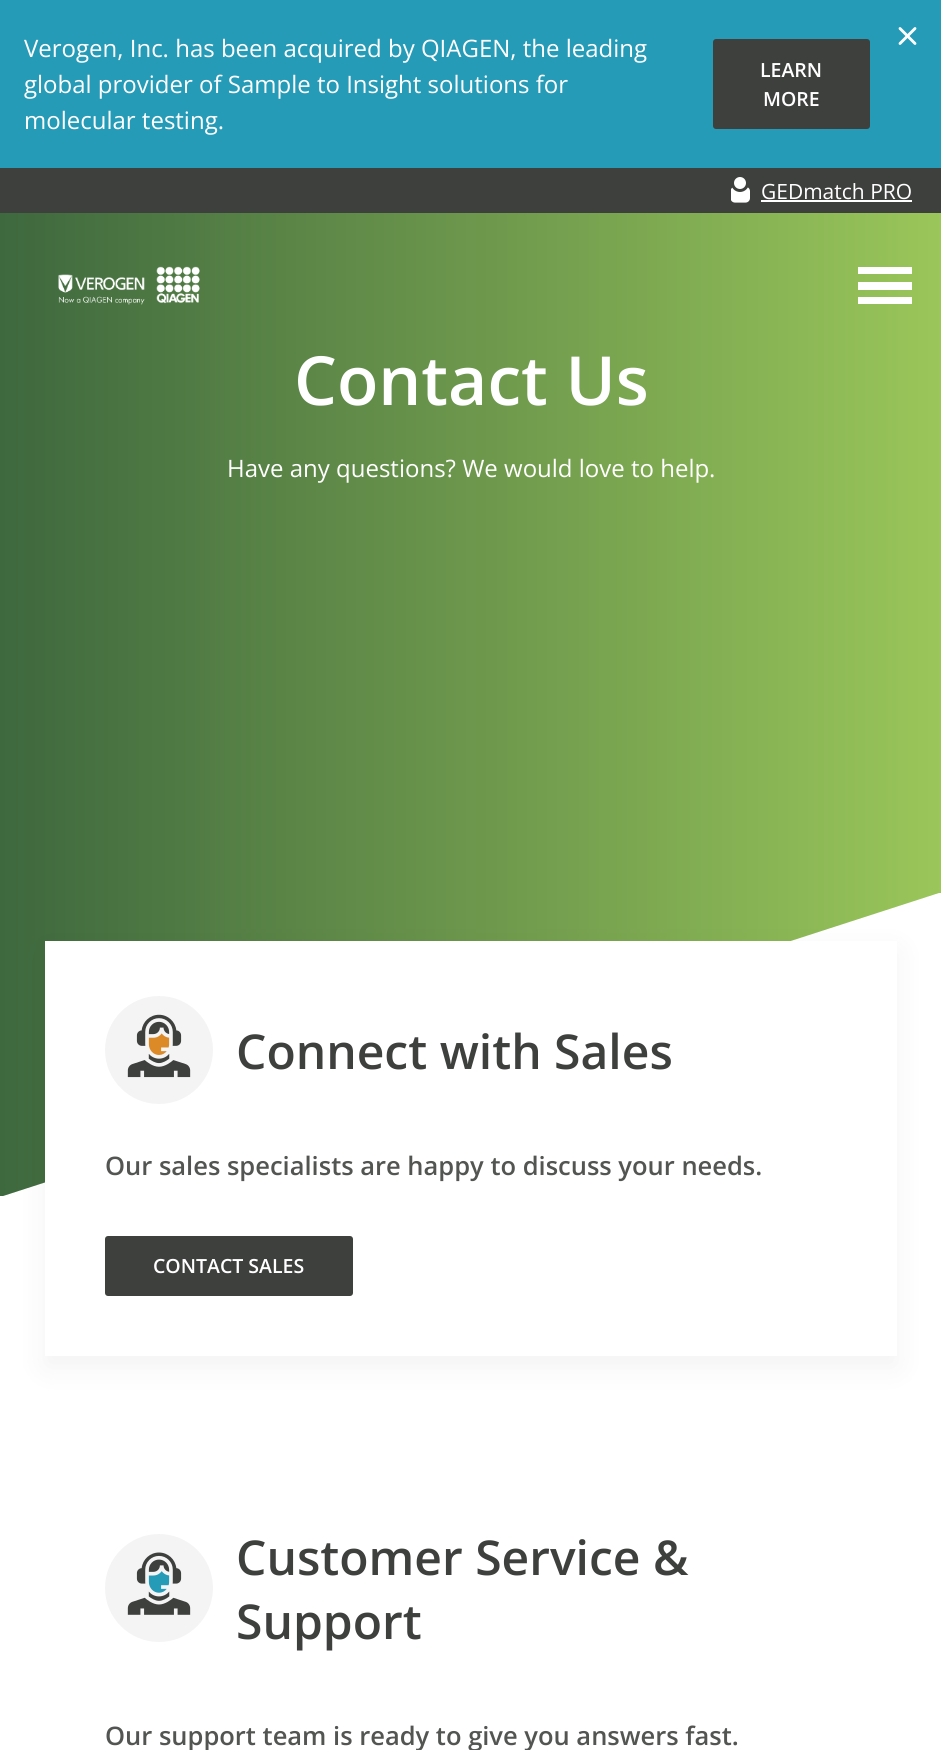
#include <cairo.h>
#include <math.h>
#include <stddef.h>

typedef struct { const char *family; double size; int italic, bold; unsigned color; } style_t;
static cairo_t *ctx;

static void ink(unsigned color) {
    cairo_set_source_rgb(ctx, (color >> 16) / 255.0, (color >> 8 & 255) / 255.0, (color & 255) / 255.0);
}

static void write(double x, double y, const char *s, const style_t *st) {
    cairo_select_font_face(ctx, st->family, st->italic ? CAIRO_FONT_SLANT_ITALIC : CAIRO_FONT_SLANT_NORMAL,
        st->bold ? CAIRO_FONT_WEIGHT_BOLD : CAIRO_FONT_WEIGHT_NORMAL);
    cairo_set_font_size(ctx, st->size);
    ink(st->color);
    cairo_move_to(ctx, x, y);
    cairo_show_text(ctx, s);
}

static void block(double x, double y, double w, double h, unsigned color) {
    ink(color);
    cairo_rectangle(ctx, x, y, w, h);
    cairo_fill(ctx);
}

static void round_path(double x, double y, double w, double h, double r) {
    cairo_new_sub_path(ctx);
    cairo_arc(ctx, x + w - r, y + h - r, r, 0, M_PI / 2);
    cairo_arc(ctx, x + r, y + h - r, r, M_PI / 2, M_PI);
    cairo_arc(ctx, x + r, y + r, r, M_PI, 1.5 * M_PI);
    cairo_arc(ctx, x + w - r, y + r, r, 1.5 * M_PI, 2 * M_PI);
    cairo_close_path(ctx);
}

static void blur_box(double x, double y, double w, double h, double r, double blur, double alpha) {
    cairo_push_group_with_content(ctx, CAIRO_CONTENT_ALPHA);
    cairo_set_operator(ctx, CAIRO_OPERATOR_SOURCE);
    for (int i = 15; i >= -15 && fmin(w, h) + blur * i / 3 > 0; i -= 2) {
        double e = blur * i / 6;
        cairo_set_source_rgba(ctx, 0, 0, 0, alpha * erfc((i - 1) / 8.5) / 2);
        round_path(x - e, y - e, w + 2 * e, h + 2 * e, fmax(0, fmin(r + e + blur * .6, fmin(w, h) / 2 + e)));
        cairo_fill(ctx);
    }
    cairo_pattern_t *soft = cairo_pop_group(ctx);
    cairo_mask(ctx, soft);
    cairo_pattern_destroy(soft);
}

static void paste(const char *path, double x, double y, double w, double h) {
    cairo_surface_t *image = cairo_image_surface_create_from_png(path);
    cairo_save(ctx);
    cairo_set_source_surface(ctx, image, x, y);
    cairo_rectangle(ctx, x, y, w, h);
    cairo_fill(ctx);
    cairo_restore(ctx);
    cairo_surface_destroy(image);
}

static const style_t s1 = {"Open Sans", 24, 0, 0, 0xffffff};
static const style_t s2 = {"Open Sans SemiBold", 19.5, 0, 0, 0xffffff};
static const style_t s3 = {"Open Sans", 21, 0, 0, 0xffffff};
static const style_t s4 = {"Open Sans SemiBold", 67.75, 0, 0, 0xffffff};
static const style_t s5 = {"Open Sans SemiBold", 48, 0, 0, 0x3e403e};
static const style_t s6 = {"Open Sans SemiBold", 25.5, 0, 0, 0x535552};

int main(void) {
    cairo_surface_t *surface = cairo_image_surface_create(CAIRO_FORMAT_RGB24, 941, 1750);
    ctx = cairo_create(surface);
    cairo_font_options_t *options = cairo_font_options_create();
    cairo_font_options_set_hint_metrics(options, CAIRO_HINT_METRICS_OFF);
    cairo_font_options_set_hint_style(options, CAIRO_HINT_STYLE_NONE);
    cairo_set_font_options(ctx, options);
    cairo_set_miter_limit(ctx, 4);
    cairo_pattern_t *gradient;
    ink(0xffffff);
    cairo_paint(ctx);
    block(0, 0, 941, 168, 0x259bb7);
    ink(0xffffff);
    cairo_new_path(ctx);
    cairo_move_to(ctx, 916, 27.5);
    cairo_curve_to(ctx, 916.5, 28, 916.5, 29, 916, 29.5);
    cairo_line_to(ctx, 901, 44.5);
    cairo_curve_to(ctx, 900.5, 45, 899.5, 45, 899, 44.5);
    cairo_curve_to(ctx, 898.5, 44, 898.5, 43, 899, 42.5);
    cairo_line_to(ctx, 914, 27.5);
    cairo_curve_to(ctx, 914.5, 27, 915.5, 27, 916, 27.5);
    cairo_close_path(ctx);
    cairo_fill(ctx);
    cairo_new_path(ctx);
    cairo_move_to(ctx, 899, 27.5);
    cairo_curve_to(ctx, 899.5, 27, 900.5, 27, 901, 27.5);
    cairo_line_to(ctx, 916, 42.5);
    cairo_curve_to(ctx, 916.5, 43, 916.5, 44, 916, 44.5);
    cairo_curve_to(ctx, 915.5, 45, 914.5, 45, 914, 44.5);
    cairo_line_to(ctx, 899, 29.5);
    cairo_curve_to(ctx, 898.5, 29, 898.5, 28, 899, 27.5);
    cairo_close_path(ctx);
    cairo_fill(ctx);
    write(24, 57, "Verogen, Inc. has been acquired by QIAGEN, the leading", &s1);
    write(24, 93, "global provider of Sample to Insight solutions for", &s1);
    write(24, 129, "molecular testing.", &s1);
    ink(0x3e403e);
    round_path(714.5, 40.5, 154, 87, 1.5);
    cairo_fill_preserve(ctx);
    cairo_set_line_width(ctx, 3);
    cairo_stroke(ctx);
    write(760, 77, "LEARN", &s2);
    write(763, 106, "MORE", &s2);
    block(0, 168, 941, 45, 0x3e403e);
    paste("pic1.png", 731, 177, 19, 26);
    write(761, 199, "GEDmatch PRO", &s3);
    block(761, 200, 151, 2, 0xffffff);
    gradient = cairo_pattern_create_linear(0, 704, 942, 704);
    cairo_pattern_add_color_stop_rgba(gradient, 0, 0.243, 0.408, 0.243, 1);
    cairo_pattern_add_color_stop_rgba(gradient, 1, 0.604, 0.776, 0.353, 1);
    cairo_set_source(ctx, gradient);
    cairo_pattern_destroy(gradient);
    cairo_rectangle(ctx, 0, 213, 941, 983);
    cairo_fill(ctx);
    paste("pic2.png", 58, 266, 142, 39);
    ink(0xffffff);
    cairo_set_fill_rule(ctx, CAIRO_FILL_RULE_EVEN_ODD);
    cairo_new_path(ctx);
    cairo_move_to(ctx, 912, 297);
    cairo_line_to(ctx, 912, 304);
    cairo_line_to(ctx, 858, 304);
    cairo_line_to(ctx, 858, 297);
    cairo_close_path(ctx);
    cairo_move_to(ctx, 912, 282);
    cairo_line_to(ctx, 912, 290);
    cairo_line_to(ctx, 858, 290);
    cairo_line_to(ctx, 858, 282);
    cairo_close_path(ctx);
    cairo_move_to(ctx, 912, 267);
    cairo_line_to(ctx, 912, 274);
    cairo_line_to(ctx, 858, 274);
    cairo_line_to(ctx, 858, 267);
    cairo_close_path(ctx);
    cairo_fill(ctx);
    write(294, 405, "Contact Us", &s4);
    write(227, 477, "Have any questions? We would love to help.", &s1);
    cairo_save(ctx);
    cairo_set_fill_rule(ctx, CAIRO_FILL_RULE_WINDING);
    cairo_rectangle(ctx, 0, 893, 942, 303);
    cairo_clip(ctx);
    cairo_set_fill_rule(ctx, CAIRO_FILL_RULE_EVEN_ODD);
    cairo_new_path(ctx);
    cairo_move_to(ctx, 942, 892);
    cairo_line_to(ctx, 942, 1197);
    cairo_line_to(ctx, 0, 1197);
    cairo_close_path(ctx);
    cairo_fill(ctx);
    cairo_restore(ctx);
    ink(0x000000);
    blur_box(45, 951, 852, 416, 0, 15, 0.05);
    block(45, 941, 852, 415, 0xffffff);
    paste("pic3.png", 105, 996, 108, 108);
    write(236, 1069, "Connect with Sales", &s5);
    write(105, 1175, "Our sales specialists are happy to discuss your needs.", &s6);
    ink(0x3e403e);
    round_path(106.5, 1237.5, 245, 57, 1.5);
    cairo_fill_preserve(ctx);
    cairo_stroke(ctx);
    write(153, 1273, "CONTACT SALES", &s2);
    paste("pic4.png", 105, 1534, 108, 108);
    write(236, 1575, "Customer Service &", &s5);
    write(236, 1639, "Support", &s5);
    write(105, 1745, "Our support team is ready to give you answers fast.", &s6);
    cairo_surface_write_to_png(surface, "screenshot.png");
    cairo_font_options_destroy(options);
    cairo_destroy(ctx);
    cairo_surface_destroy(surface);
    return 0;
}
